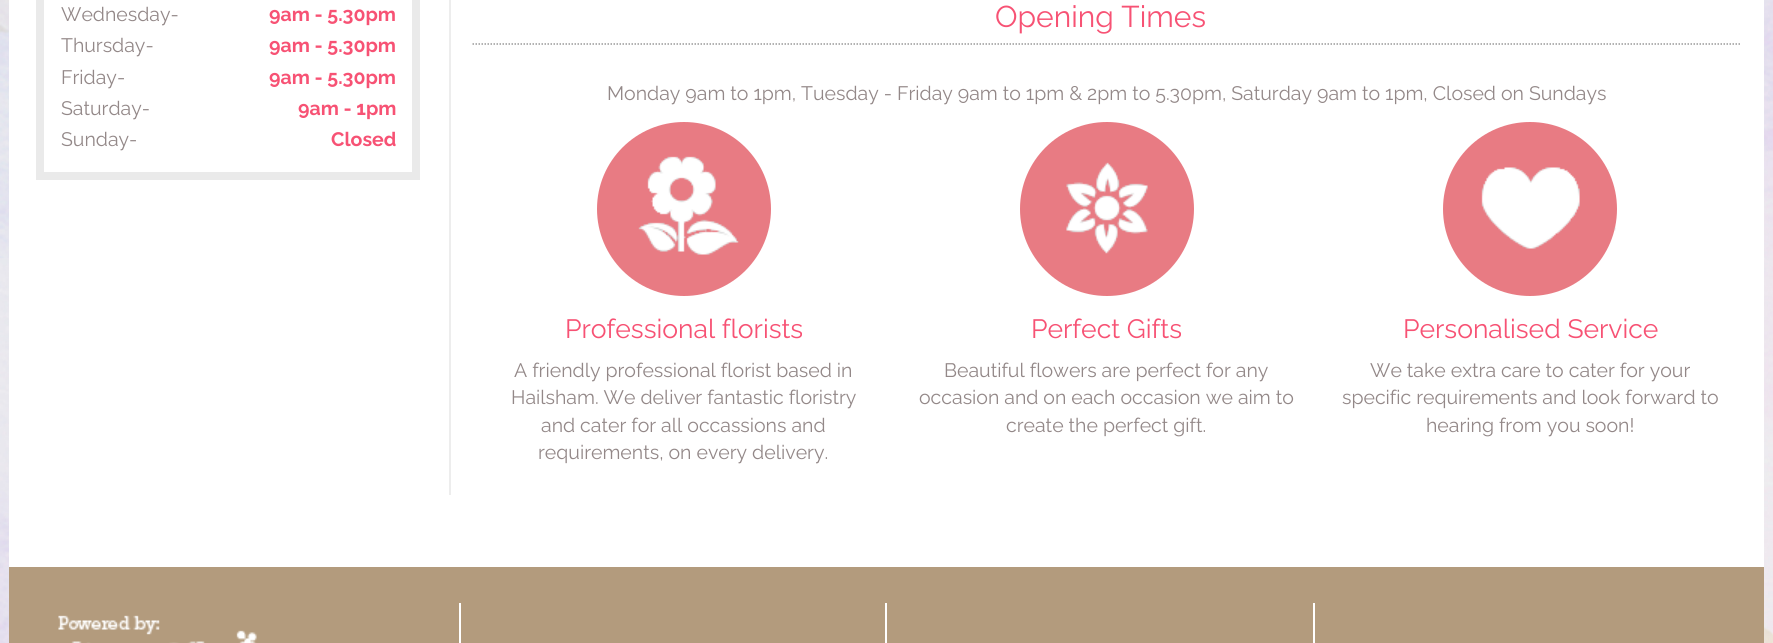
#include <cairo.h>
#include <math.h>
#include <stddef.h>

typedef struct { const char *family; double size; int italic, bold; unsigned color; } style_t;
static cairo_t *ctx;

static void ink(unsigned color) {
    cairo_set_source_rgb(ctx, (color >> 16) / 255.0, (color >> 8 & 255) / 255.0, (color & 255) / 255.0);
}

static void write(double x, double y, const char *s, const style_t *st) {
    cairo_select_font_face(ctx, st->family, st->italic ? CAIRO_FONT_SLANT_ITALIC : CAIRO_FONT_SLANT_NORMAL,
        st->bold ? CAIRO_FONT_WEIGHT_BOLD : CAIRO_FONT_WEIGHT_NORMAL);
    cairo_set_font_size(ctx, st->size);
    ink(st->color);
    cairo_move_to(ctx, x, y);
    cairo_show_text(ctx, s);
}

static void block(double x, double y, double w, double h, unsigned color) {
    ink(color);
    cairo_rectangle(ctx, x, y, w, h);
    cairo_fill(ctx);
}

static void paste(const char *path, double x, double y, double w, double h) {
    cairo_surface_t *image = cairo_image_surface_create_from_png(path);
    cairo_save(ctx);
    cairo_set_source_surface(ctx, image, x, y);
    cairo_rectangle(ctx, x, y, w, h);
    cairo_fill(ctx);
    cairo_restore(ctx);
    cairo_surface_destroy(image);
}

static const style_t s1 = {"Raleway", 19.5, 0, 0, 0x938888};
static const style_t s2 = {"Raleway", 19.5, 0, 1, 0xf75274};
static const style_t s3 = {"Raleway", 30, 0, 0, 0xf75274};
static const style_t s4 = {"Raleway", 26.5, 0, 0, 0xf75274};

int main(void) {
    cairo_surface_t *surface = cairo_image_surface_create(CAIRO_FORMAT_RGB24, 1773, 643);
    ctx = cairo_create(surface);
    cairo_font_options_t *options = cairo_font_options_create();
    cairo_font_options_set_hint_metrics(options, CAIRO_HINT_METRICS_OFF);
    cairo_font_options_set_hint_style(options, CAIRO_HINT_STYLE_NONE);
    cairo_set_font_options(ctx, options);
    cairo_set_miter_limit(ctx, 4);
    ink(0xffffff);
    cairo_paint(ctx);
    paste("pic1.png", 0, 0, 1773, 643);
    block(9, 0, 1755, 567, 0xffffff);
    cairo_rectangle(ctx, 40, -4, 376, 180);
    ink(0xeaeaea);
    cairo_set_line_width(ctx, 8);
    cairo_stroke(ctx);
    write(61, 21, "Wednesday-", &s1);
    write(269, 21, "9am - 5.30pm", &s2);
    write(61, 52, "Thursday-", &s1);
    write(269, 52, "9am - 5.30pm", &s2);
    write(61, 84, "Friday-", &s1);
    write(269, 84, "9am - 5.30pm", &s2);
    write(61, 115, "Saturday-", &s1);
    write(298, 115, "9am - 1pm", &s2);
    write(61, 146, "Sunday-", &s1);
    write(331, 146, "Closed", &s2);
    block(449, 0, 2, 495, 0xededed);
    cairo_new_path(ctx);
    cairo_move_to(ctx, 472.5, 44);
    cairo_line_to(ctx, 1741.5, 44);
    ink(0x999999);
    cairo_set_line_width(ctx, 1.5);
    cairo_set_dash(ctx, (double[]){1.5, 1.5}, 2, 0);
    cairo_stroke(ctx);
    write(995, 27, "Opening Times", &s3);
    write(607, 100, "Monday 9am to 1pm, Tuesday - Friday 9am to 1pm & 2pm to 5.30pm, Saturday 9am to 1pm, Closed on Sundays", &s1);
    ink(0xe87b83);
    cairo_new_path(ctx);
    cairo_arc(ctx, 684, 209, 87, 0, 2 * M_PI);
    cairo_fill(ctx);
    paste("pic2.png", 638, 156, 101, 99);
    write(565, 338, "Professional florists", &s4);
    write(514, 377, "A friendly professional florist based in", &s1);
    write(511, 404, "Hailsham. We deliver fantastic floristry", &s1);
    write(541, 432, "and cater for all occassions and", &s1);
    write(538, 459, "requirements, on every delivery.", &s1);
    ink(0xe87b83);
    cairo_new_path(ctx);
    cairo_arc(ctx, 1107, 209, 87, 0, 2 * M_PI);
    cairo_fill(ctx);
    paste("pic3.png", 1066, 162, 82, 92);
    write(1031, 338, "Perfect Gifts", &s4);
    write(944, 377, "Beautiful flowers are perfect for any", &s1);
    write(919, 404, "occasion and on each occasion we aim to", &s1);
    write(1006, 432, "create the perfect gift.", &s1);
    ink(0xe87b83);
    cairo_new_path(ctx);
    cairo_arc(ctx, 1530, 209, 87, 0, 2 * M_PI);
    cairo_fill(ctx);
    paste("pic4.png", 1481, 167, 135, 82);
    write(1403, 338, "Personalised Service", &s4);
    write(1370, 377, "We take extra care to cater for your", &s1);
    write(1342, 404, "specific requirements and look forward to", &s1);
    write(1426, 432, "hearing from you soon!", &s1);
    block(9, 567, 1755, 76, 0xb39b7d);
    block(459, 603, 2, 40, 0xffffff);
    paste("pic5.png", 58, 615, 199, 28);
    block(885, 603, 2, 40, 0xffffff);
    block(1313, 603, 2, 40, 0xffffff);
    cairo_surface_write_to_png(surface, "screenshot.png");
    cairo_font_options_destroy(options);
    cairo_destroy(ctx);
    cairo_surface_destroy(surface);
    return 0;
}
